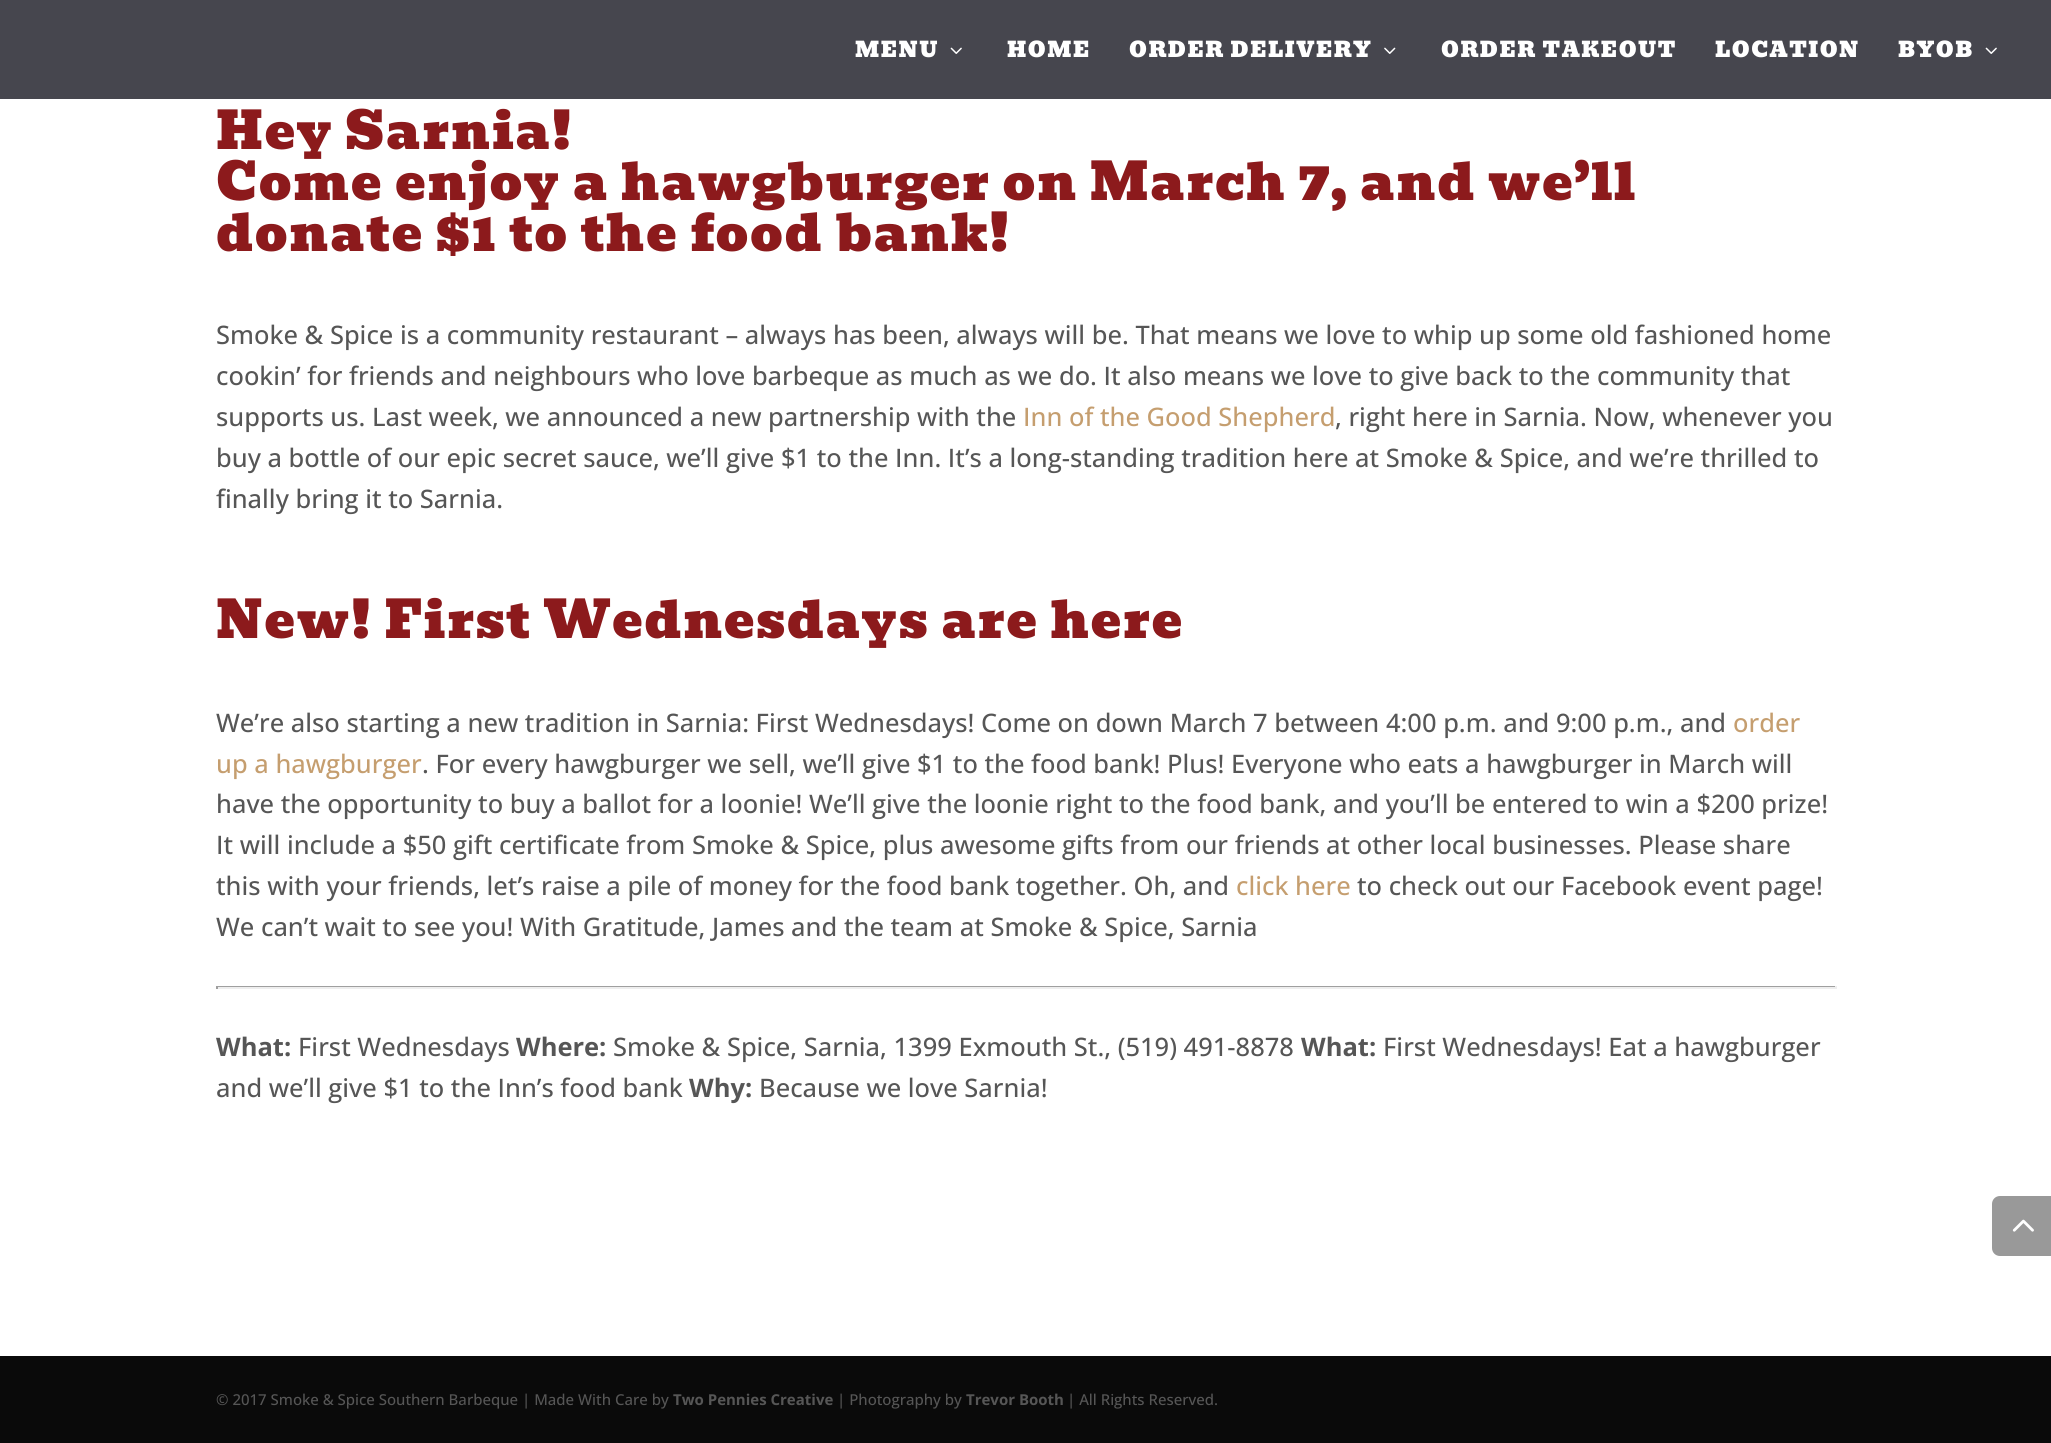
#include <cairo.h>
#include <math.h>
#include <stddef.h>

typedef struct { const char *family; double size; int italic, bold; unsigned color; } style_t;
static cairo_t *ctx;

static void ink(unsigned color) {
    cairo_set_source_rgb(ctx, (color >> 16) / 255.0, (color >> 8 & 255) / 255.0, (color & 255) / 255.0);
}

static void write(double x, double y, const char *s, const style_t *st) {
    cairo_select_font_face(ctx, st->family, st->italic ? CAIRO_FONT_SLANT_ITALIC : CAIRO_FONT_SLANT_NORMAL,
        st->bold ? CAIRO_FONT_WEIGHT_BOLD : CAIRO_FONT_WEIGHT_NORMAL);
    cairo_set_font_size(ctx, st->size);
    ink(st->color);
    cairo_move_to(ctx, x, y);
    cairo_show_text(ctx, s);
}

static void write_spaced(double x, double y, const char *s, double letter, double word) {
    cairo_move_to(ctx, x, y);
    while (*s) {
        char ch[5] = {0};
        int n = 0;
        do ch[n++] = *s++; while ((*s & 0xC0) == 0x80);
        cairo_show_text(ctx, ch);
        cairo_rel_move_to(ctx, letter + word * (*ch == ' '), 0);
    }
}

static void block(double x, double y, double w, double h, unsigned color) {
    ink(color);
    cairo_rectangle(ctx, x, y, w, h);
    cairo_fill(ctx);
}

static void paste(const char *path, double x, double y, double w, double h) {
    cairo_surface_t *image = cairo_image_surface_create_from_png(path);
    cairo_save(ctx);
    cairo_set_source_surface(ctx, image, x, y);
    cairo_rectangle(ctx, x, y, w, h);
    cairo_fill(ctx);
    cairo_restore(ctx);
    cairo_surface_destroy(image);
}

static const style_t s1 = {"Open Sans Medium", 25.5, 0, 0, 0x565656};
static const style_t s2 = {"Open Sans Medium", 25.5, 0, 0, 0xc59e6f};
static const style_t s3 = {"Open Sans", 25.5, 0, 1, 0x565656};
static const style_t s4 = {"Open Sans Medium", 15, 0, 0, 0x565656};
static const style_t s5 = {"Open Sans", 15, 0, 1, 0x565656};

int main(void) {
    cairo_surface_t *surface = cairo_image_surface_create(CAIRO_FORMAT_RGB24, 2051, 1443);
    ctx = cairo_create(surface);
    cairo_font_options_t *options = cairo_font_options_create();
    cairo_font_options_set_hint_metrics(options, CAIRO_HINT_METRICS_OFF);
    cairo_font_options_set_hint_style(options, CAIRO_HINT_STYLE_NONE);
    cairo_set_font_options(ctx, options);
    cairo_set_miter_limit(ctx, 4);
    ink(0x0a0a0a);
    cairo_paint(ctx);
    block(0, 0, 2051, 99, 0x46464e);
    cairo_select_font_face(ctx, "Bevan", CAIRO_FONT_SLANT_NORMAL, CAIRO_FONT_WEIGHT_NORMAL);
    cairo_set_font_size(ctx, 21);
    ink(0xffffff);
    write_spaced(855, 57, "MENU", 1.5, 0);
    paste("pic1.png", 950, 47, 12, 7);
    write_spaced(1007, 57, "HOME", 1.5, 0);
    write_spaced(1129, 57, "ORDER DELIVERY", 1.5, 0);
    paste("pic2.png", 1384, 47, 12, 7);
    write_spaced(1441, 57, "ORDER TAKEOUT", 1.5, 0);
    write_spaced(1715, 57, "LOCATION", 1.5, 0);
    write_spaced(1898, 57, "BYOB", 1.5, 0);
    paste("pic1.png", 1985, 47, 12, 7);
    block(0, 99, 2051, 1257, 0xffffff);
    cairo_set_font_size(ctx, 51);
    ink(0x8c1a1c);
    write_spaced(216, 149, "Hey Sarnia!", 1.5, 0);
    write_spaced(216, 200, "Come enjoy a hawgburger on March 7, and we’ll", 1.5, 0);
    write_spaced(216, 251, "donate $1 to the food bank!", 1.5, 0);
    write(216, 344, "Smoke & Spice is a community restaurant – always has been, always will be. That means we love to whip up some old fashioned home", &s1);
    write(216, 385, "cookin’ for friends and neighbours who love barbeque as much as we do. It also means we love to give back to the community that", &s1);
    write(216, 426, "supports us. Last week, we announced a new partnership with the", &s1);
    write(1023, 426, "Inn of the Good Shepherd", &s2);
    write(1335, 426, ", right here in Sarnia. Now, whenever you", &s1);
    write(216, 467, "buy a bottle of our epic secret sauce, we’ll give $1 to the Inn. It’s a long-standing tradition here at Smoke & Spice, and we’re thrilled to", &s1);
    write(216, 508, "finally bring it to Sarnia.", &s1);
    cairo_select_font_face(ctx, "Bevan", CAIRO_FONT_SLANT_NORMAL, CAIRO_FONT_WEIGHT_NORMAL);
    cairo_set_font_size(ctx, 51);
    ink(0x8c1a1c);
    write_spaced(216, 638, "New! First Wednesdays are here", 1.5, 0);
    write(216, 732, "We’re also starting a new tradition in Sarnia: First Wednesdays! Come on down March 7 between 4:00 p.m. and 9:00 p.m., and", &s1);
    write(1733, 732, "order", &s2);
    write(216, 773, "up a hawgburger", &s2);
    write(422, 773, ". For every hawgburger we sell, we’ll give $1 to the food bank! Plus! Everyone who eats a hawgburger in March will", &s1);
    write(216, 813, "have the opportunity to buy a ballot for a loonie! We’ll give the loonie right to the food bank, and you’ll be entered to win a $200 prize!", &s1);
    write(216, 854, "It will include a $50 gift certificate from Smoke & Spice, plus awesome gifts from our friends at other local businesses. Please share", &s1);
    write(216, 895, "this with your friends, let’s raise a pile of money for the food bank together. Oh, and", &s1);
    write(1236, 895, "click here", &s2);
    write(1357, 895, "to check out our Facebook event page!", &s1);
    write(216, 936, "We can’t wait to see you! With Gratitude, James and the team at Smoke & Spice, Sarnia", &s1);
    block(216, 986, 1620, 1, 0x9f9f9f);
    block(1835, 986, 2, 3, 0xeeeeee);
    block(216, 987, 1620, 2, 0xeeeeee);
    block(216, 986, 2, 3, 0x9f9f9f);
    write(216, 1056, "What:", &s3);
    write(298, 1056, "First Wednesdays", &s1);
    write(516, 1056, "Where:", &s3);
    write(613, 1056, "Smoke & Spice, Sarnia, 1399 Exmouth St., (519) 491-8878", &s1);
    write(1301, 1056, "What:", &s3);
    write(1383, 1056, "First Wednesdays! Eat a hawgburger", &s1);
    write(216, 1097, "and we’ll give $1 to the Inn’s food bank", &s1);
    write(689, 1097, "Why:", &s3);
    write(759, 1097, "Because we love Sarnia!", &s1);
    ink(0x999999);
    cairo_new_path(ctx);
    cairo_move_to(ctx, 2000, 1196);
    cairo_line_to(ctx, 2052, 1196);
    cairo_line_to(ctx, 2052, 1256);
    cairo_line_to(ctx, 2000, 1256);
    cairo_curve_to(ctx, 1995.5, 1256, 1992, 1252.5, 1992, 1248);
    cairo_line_to(ctx, 1992, 1204);
    cairo_curve_to(ctx, 1992, 1199.5, 1995.5, 1196, 2000, 1196);
    cairo_close_path(ctx);
    cairo_fill(ctx);
    paste("pic3.png", 2012, 1219, 22, 13);
    write(216, 1405, "© 2017 Smoke & Spice Southern Barbeque | Made With Care by", &s4);
    write(673, 1405, "Two Pennies Creative", &s5);
    write(837, 1405, "| Photography by", &s4);
    write(966, 1405, "Trevor Booth", &s5);
    write(1067, 1405, "| All Rights Reserved.", &s4);
    cairo_surface_write_to_png(surface, "screenshot.png");
    cairo_font_options_destroy(options);
    cairo_destroy(ctx);
    cairo_surface_destroy(surface);
    return 0;
}
